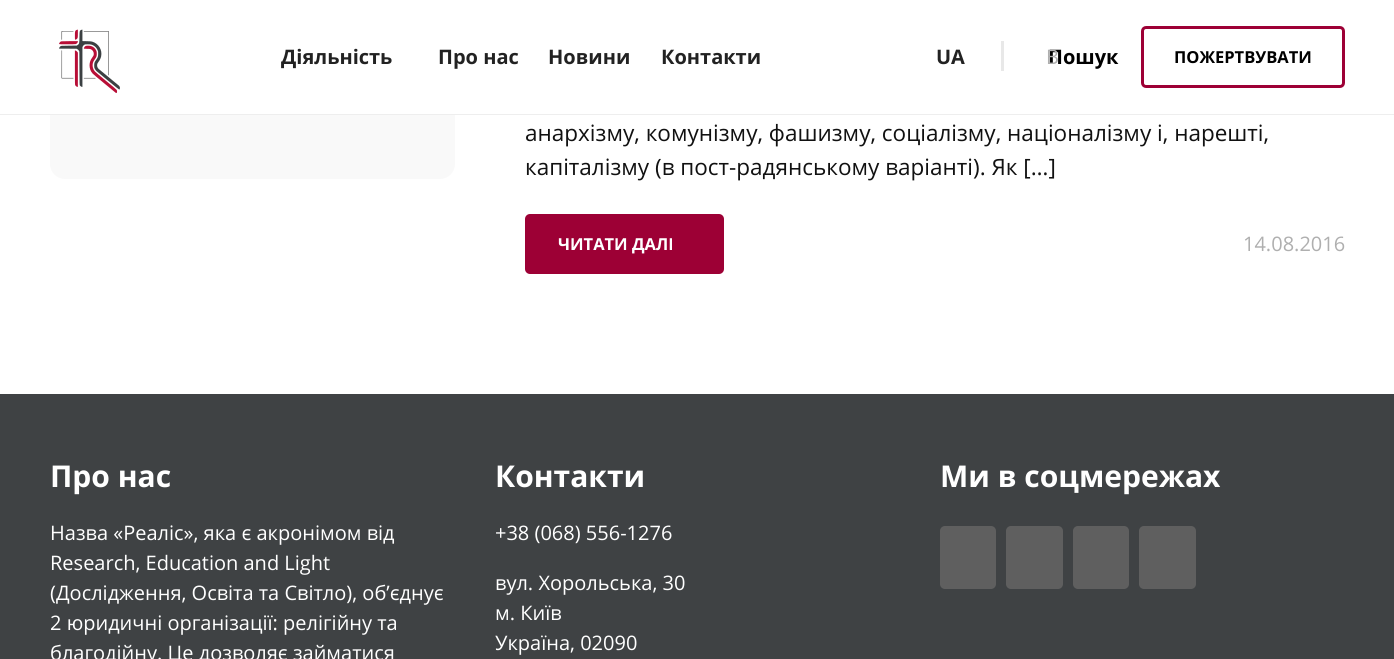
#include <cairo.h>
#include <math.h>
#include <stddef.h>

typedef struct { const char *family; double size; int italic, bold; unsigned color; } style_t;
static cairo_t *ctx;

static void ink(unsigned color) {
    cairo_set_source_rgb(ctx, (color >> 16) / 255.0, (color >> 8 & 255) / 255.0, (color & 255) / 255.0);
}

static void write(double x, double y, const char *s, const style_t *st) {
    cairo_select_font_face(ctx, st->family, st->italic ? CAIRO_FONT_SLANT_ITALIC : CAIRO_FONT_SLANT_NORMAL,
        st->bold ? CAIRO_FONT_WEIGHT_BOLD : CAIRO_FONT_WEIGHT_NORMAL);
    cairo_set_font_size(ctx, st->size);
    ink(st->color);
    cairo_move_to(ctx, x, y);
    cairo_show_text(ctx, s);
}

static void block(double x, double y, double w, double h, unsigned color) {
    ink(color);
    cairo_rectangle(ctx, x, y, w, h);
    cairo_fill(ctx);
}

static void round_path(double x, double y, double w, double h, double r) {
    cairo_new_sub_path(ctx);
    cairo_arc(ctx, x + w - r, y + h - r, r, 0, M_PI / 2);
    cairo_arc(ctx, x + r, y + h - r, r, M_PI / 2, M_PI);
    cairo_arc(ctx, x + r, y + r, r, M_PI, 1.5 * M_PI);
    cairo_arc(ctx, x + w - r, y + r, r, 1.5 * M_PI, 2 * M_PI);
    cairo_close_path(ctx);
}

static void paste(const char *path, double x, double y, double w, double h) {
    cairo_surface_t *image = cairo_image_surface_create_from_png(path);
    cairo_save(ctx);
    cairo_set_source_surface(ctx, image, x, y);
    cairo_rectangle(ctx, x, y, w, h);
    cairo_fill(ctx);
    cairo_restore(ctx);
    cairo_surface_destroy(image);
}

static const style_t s1 = {"Open Sans", 20, 0, 1, 0x222222};
static const style_t s2 = {"Open Sans", 20, 0, 1, 0x000000};
static const style_t s3 = {"Open Sans", 20, 0, 0, 0xafafaf};
static const style_t s4 = {"Open Sans", 16.5, 0, 1, 0x000000};
static const style_t s5 = {"Open Sans", 22.5, 0, 0, 0x111111};
static const style_t s6 = {"Open Sans", 16.5, 0, 1, 0xffffff};
static const style_t s7 = {"Open Sans", 30, 0, 1, 0xffffff};
static const style_t s8 = {"Open Sans", 20, 0, 0, 0xffffff};

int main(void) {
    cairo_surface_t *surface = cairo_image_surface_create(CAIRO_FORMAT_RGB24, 1394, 659);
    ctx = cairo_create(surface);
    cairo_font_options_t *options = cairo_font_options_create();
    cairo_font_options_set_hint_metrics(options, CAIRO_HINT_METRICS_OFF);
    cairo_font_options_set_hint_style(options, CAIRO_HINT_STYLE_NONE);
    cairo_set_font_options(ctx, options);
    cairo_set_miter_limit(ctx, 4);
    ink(0xffffff);
    cairo_paint(ctx);
    ink(0xf9f9f9);
    round_path(50, -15, 405, 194, 15);
    cairo_fill(ctx);
    block(50, 0, 405, 114, 0xffffff);
    block(0, 114, 1394, 1, 0xeeeeee);
    paste("pic1.png", 59, 29, 61, 64);
    write(281, 64, "Діяльність", &s1);
    write(438, 64, "Про нас", &s1);
    write(548, 64, "Новини", &s1);
    write(661, 64, "Контакти", &s1);
    write(936, 64, "UA", &s1);
    block(1001, 41, 3, 30, 0xe8e8e8);
    write(1048, 64, "Пошук", &s2);
    write(1046, 64, "В", &s3);
    round_path(1142.5, 27.5, 201, 59, 3.5);
    ink(0x9d0035);
    cairo_set_line_width(ctx, 3);
    cairo_stroke(ctx);
    write(1174, 63, "ПОЖЕРТВУВАТИ", &s4);
    write(525, 141, "анархізму, комунізму, фашизму, соціалізму, націоналізму і, нарешті,", &s5);
    write(525, 175, "капіталізму (в пост-радянському варіанті). Як […]", &s5);
    ink(0x9d0035);
    round_path(525, 214, 199, 60, 5);
    cairo_fill(ctx);
    write(558, 250, "ЧИТАТИ ДАЛІ", &s6);
    write(1243, 251, "14.08.2016", &s3);
    block(0, 394, 1394, 265, 0x3f4244);
    write(50, 487, "Про нас", &s7);
    write(50, 540, "Назва «Реаліс», яка є акронімом від", &s8);
    write(50, 570, "Research, Education and Light", &s8);
    write(50, 600, "(Дослідження, Освіта та Світло), обʼєднує", &s8);
    write(50, 630, "2 юридичні організації: релігійну та", &s8);
    write(50, 660, "благодійну. Це дозволяє займатися", &s8);
    write(495, 487, "Контакти", &s7);
    write(495, 540, "+38 (068) 556-1276", &s8);
    write(495, 590, "вул. Хорольська, 30", &s8);
    write(495, 620, "м. Київ", &s8);
    write(495, 650, "Україна, 02090", &s8);
    write(940, 487, "Ми в соцмережах", &s7);
    ink(0x5f5f5f);
    round_path(940, 526, 56, 63, 5);
    cairo_fill(ctx);
    round_path(1006, 526, 57, 63, 5);
    cairo_fill(ctx);
    round_path(1073, 526, 56, 63, 5);
    cairo_fill(ctx);
    round_path(1139, 526, 57, 63, 5);
    cairo_fill(ctx);
    cairo_surface_write_to_png(surface, "screenshot.png");
    cairo_font_options_destroy(options);
    cairo_destroy(ctx);
    cairo_surface_destroy(surface);
    return 0;
}
